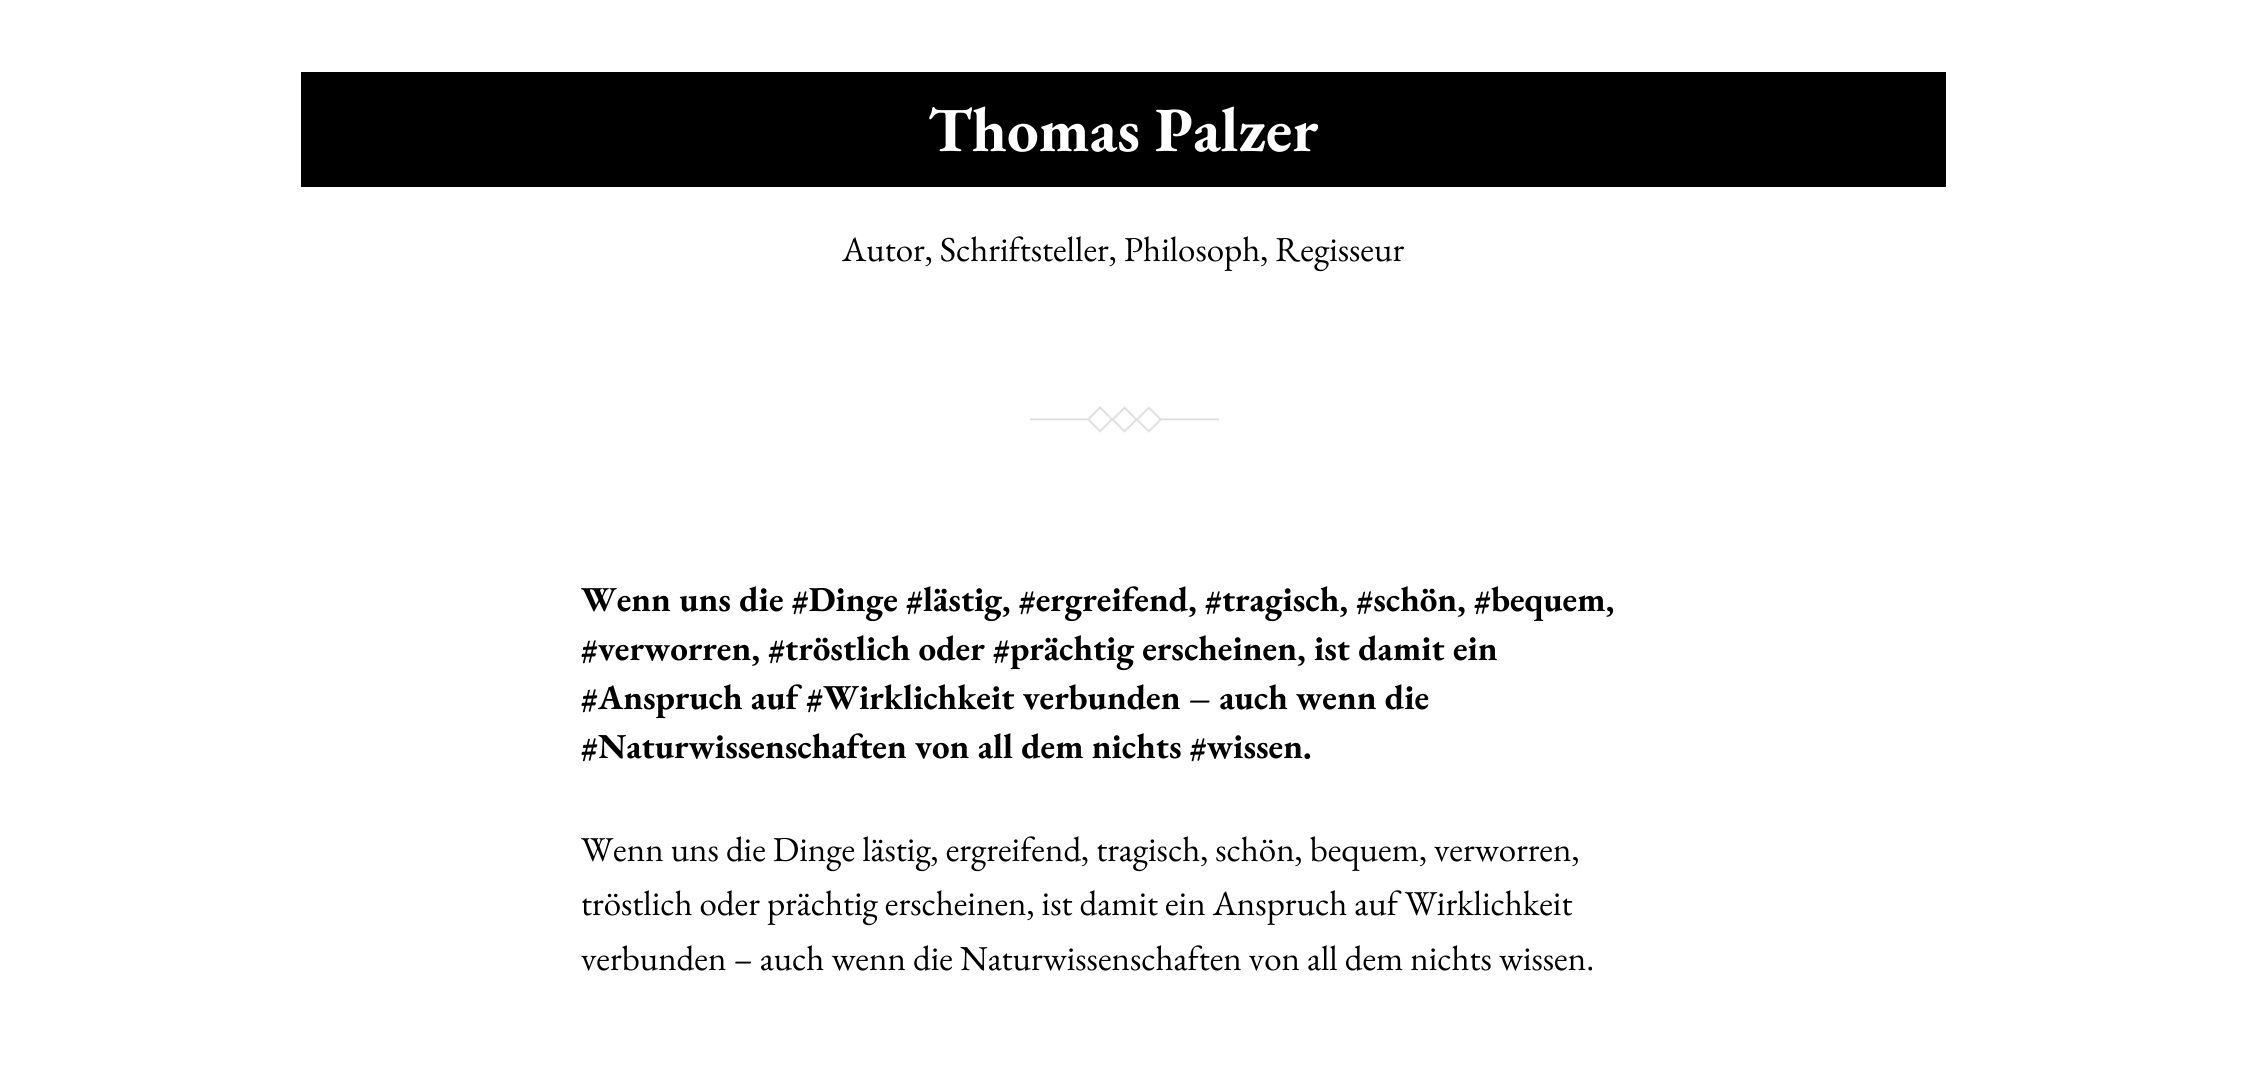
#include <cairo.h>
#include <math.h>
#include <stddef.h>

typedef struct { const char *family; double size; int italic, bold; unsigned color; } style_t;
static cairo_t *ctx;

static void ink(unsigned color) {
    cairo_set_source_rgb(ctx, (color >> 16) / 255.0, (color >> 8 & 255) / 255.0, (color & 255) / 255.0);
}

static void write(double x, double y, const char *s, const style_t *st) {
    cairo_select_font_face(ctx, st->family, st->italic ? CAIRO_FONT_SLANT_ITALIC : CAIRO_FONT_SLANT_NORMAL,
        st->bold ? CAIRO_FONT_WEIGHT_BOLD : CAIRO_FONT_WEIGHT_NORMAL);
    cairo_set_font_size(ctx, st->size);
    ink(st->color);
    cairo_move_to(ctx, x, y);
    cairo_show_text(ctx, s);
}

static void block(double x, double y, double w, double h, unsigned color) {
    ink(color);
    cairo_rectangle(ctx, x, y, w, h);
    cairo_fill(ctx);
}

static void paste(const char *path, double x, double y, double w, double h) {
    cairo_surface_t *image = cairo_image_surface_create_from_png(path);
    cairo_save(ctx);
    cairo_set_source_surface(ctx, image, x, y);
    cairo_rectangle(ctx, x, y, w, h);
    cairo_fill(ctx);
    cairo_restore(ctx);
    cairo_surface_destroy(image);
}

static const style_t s1 = {"EB Garamond", 63, 0, 1, 0xffffff};
static const style_t s2 = {"EB Garamond", 35, 0, 0, 0x000000};
static const style_t s3 = {"EB Garamond", 35, 0, 1, 0x000000};

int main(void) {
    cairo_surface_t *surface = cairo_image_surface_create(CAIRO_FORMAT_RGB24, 2246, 1087);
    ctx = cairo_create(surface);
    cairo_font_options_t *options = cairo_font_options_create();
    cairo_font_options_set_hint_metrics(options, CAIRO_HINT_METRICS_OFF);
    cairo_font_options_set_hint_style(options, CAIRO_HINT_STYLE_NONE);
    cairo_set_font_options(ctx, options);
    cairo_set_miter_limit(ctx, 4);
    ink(0xffffff);
    cairo_paint(ctx);
    block(301, 72, 1645, 115, 0x000000);
    write(928, 151, "Thomas Palzer", &s1);
    write(842, 261, "Autor, Schriftsteller, Philosoph, Regisseur", &s2);
    paste("pic1.png", 1030, 406, 189, 27);
    write(581, 611, "Wenn uns die #Dinge #lästig, #ergreifend, #tragisch, #schön, #bequem,", &s3);
    write(581, 660, "#verworren, #tröstlich oder #prächtig erscheinen, ist damit ein", &s3);
    write(581, 709, "#Anspruch auf #Wirklichkeit verbunden – auch wenn die", &s3);
    write(581, 758, "#Naturwissenschaften von all dem nichts #wissen.", &s3);
    write(581, 861, "Wenn uns die Dinge lästig, ergreifend, tragisch, schön, bequem, verworren,", &s2);
    write(581, 915, "tröstlich oder prächtig erscheinen, ist damit ein Anspruch auf Wirklichkeit", &s2);
    write(581, 970, "verbunden – auch wenn die Naturwissenschaften von all dem nichts wissen.", &s2);
    cairo_surface_write_to_png(surface, "screenshot.png");
    cairo_font_options_destroy(options);
    cairo_destroy(ctx);
    cairo_surface_destroy(surface);
    return 0;
}
